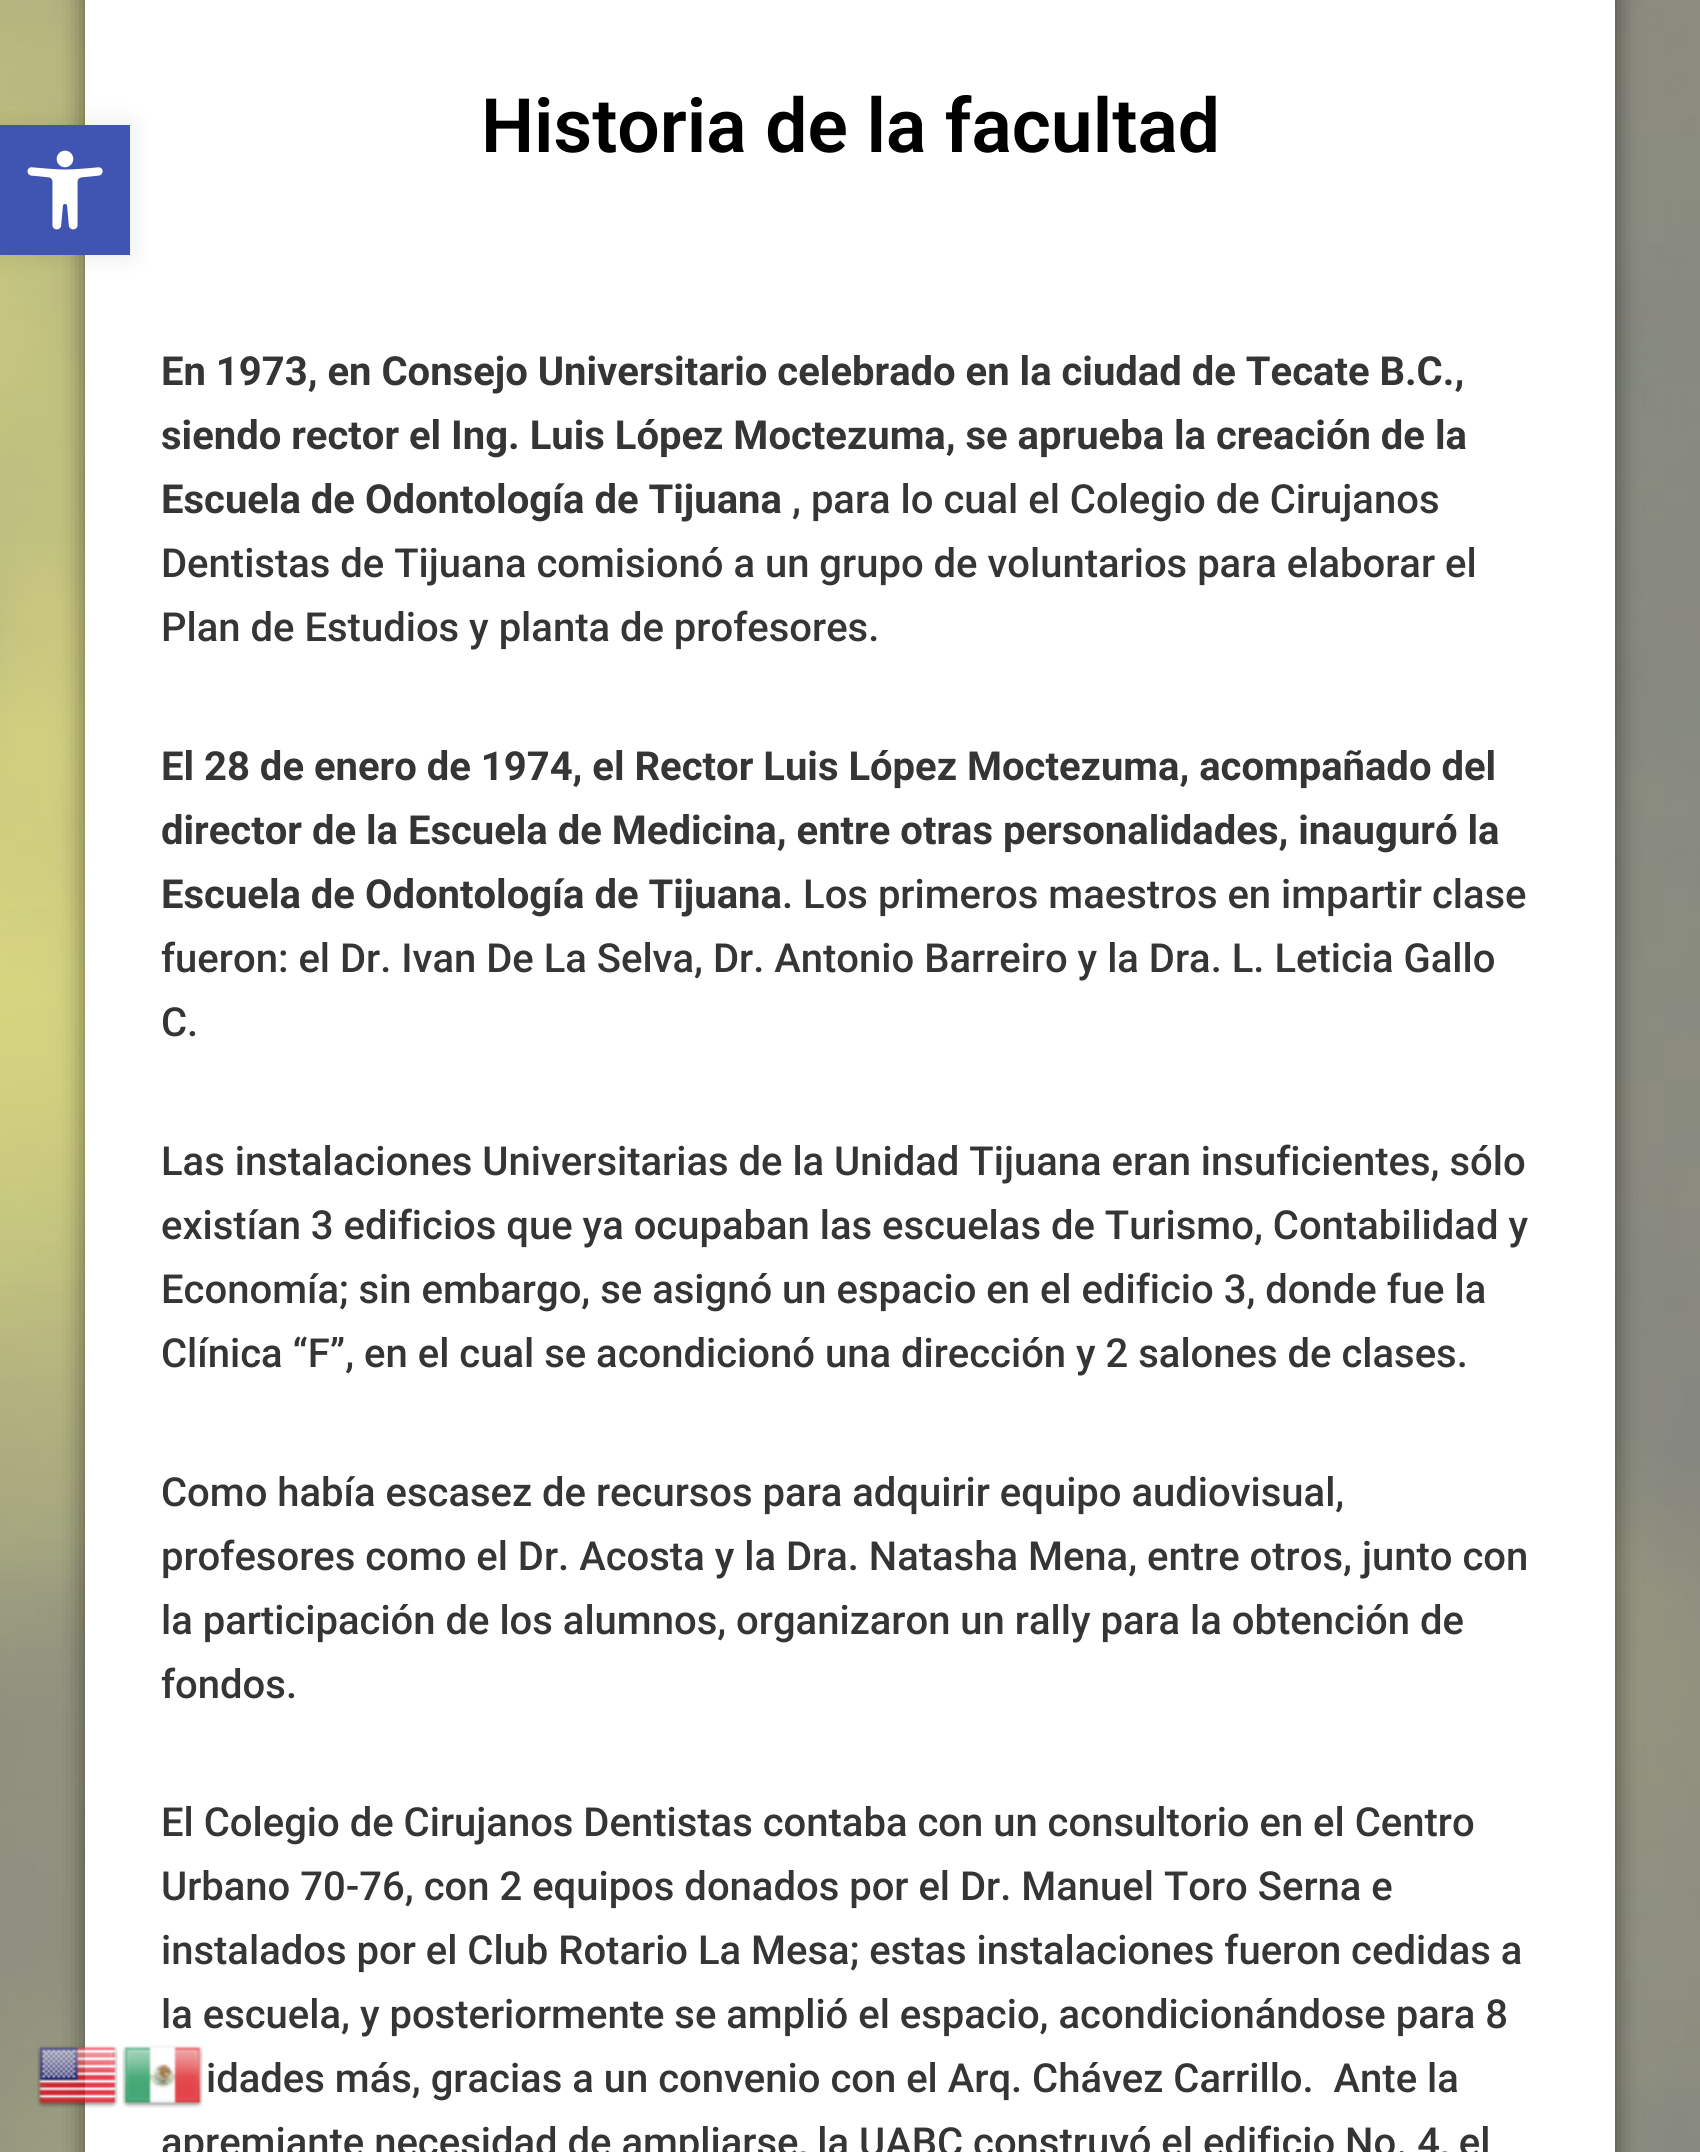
#include <cairo.h>
#include <math.h>
#include <stddef.h>

typedef struct { const char *family; double size; int italic, bold; unsigned color; } style_t;
static cairo_t *ctx;

static void ink(unsigned color) {
    cairo_set_source_rgb(ctx, (color >> 16) / 255.0, (color >> 8 & 255) / 255.0, (color & 255) / 255.0);
}

static void write(double x, double y, const char *s, const style_t *st) {
    cairo_select_font_face(ctx, st->family, st->italic ? CAIRO_FONT_SLANT_ITALIC : CAIRO_FONT_SLANT_NORMAL,
        st->bold ? CAIRO_FONT_WEIGHT_BOLD : CAIRO_FONT_WEIGHT_NORMAL);
    cairo_set_font_size(ctx, st->size);
    ink(st->color);
    cairo_move_to(ctx, x, y);
    cairo_show_text(ctx, s);
}

static void block(double x, double y, double w, double h, unsigned color) {
    ink(color);
    cairo_rectangle(ctx, x, y, w, h);
    cairo_fill(ctx);
}

static void round_path(double x, double y, double w, double h, double r) {
    cairo_new_sub_path(ctx);
    cairo_arc(ctx, x + w - r, y + h - r, r, 0, M_PI / 2);
    cairo_arc(ctx, x + r, y + h - r, r, M_PI / 2, M_PI);
    cairo_arc(ctx, x + r, y + r, r, M_PI, 1.5 * M_PI);
    cairo_arc(ctx, x + w - r, y + r, r, 1.5 * M_PI, 2 * M_PI);
    cairo_close_path(ctx);
}

static void blur_box(double x, double y, double w, double h, double r, double blur, double alpha) {
    cairo_push_group_with_content(ctx, CAIRO_CONTENT_ALPHA);
    cairo_set_operator(ctx, CAIRO_OPERATOR_SOURCE);
    for (int i = 15; i >= -15 && fmin(w, h) + blur * i / 3 > 0; i -= 2) {
        double e = blur * i / 6;
        cairo_set_source_rgba(ctx, 0, 0, 0, alpha * erfc((i - 1) / 8.5) / 2);
        round_path(x - e, y - e, w + 2 * e, h + 2 * e, fmax(0, fmin(r + e + blur * .6, fmin(w, h) / 2 + e)));
        cairo_fill(ctx);
    }
    cairo_pattern_t *soft = cairo_pop_group(ctx);
    cairo_mask(ctx, soft);
    cairo_pattern_destroy(soft);
}

static void paste(const char *path, double x, double y, double w, double h) {
    cairo_surface_t *image = cairo_image_surface_create_from_png(path);
    cairo_save(ctx);
    cairo_set_source_surface(ctx, image, x, y);
    cairo_rectangle(ctx, x, y, w, h);
    cairo_fill(ctx);
    cairo_restore(ctx);
    cairo_surface_destroy(image);
}

static const style_t s1 = {"Roboto SemiBold", 75, 0, 0, 0x000000};
static const style_t s2 = {"Roboto", 40, 0, 1, 0x353535};
static const style_t s3 = {"Roboto Medium", 40, 0, 0, 0x353535};

int main(void) {
    cairo_surface_t *surface = cairo_image_surface_create(CAIRO_FORMAT_RGB24, 1700, 2152);
    ctx = cairo_create(surface);
    cairo_font_options_t *options = cairo_font_options_create();
    cairo_font_options_set_hint_metrics(options, CAIRO_HINT_METRICS_OFF);
    cairo_font_options_set_hint_style(options, CAIRO_HINT_STYLE_NONE);
    cairo_set_font_options(ctx, options);
    cairo_set_miter_limit(ctx, 4);
    ink(0xffffff);
    cairo_paint(ctx);
    paste("pic2.png", 0, 0, 1700, 2152);
    ink(0x000000);
    blur_box(85, -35, 1530, 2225, 0, 12.5, 0.5);
    block(85, 0, 1530, 2152, 0xffffff);
    ink(0x000000);
    blur_box(0, 125, 130, 130, 0, 12.5, 0.1);
    block(0, 125, 130, 130, 0x4054b2);
    paste("pic1.png", 27, 150, 76, 80);
    write(481, 152, "Historia de la facultad", &s1);
    write(161, 385, "En 1973, en Consejo Universitario celebrado en la ciudad de Tecate B.C.,", &s2);
    write(161, 449, "siendo rector el Ing. Luis López Moctezuma, se aprueba la creación de la", &s2);
    write(161, 513, "Escuela de Odontología de Tijuana", &s2);
    write(792, 513, ", para lo cual el Colegio de Cirujanos", &s3);
    write(161, 577, "Dentistas de Tijuana comisionó a un grupo de voluntarios para elaborar el", &s3);
    write(161, 641, "Plan de Estudios y planta de profesores.", &s3);
    write(161, 780, "El 28 de enero de 1974, el Rector Luis López Moctezuma, acompañado del", &s2);
    write(161, 844, "director de la Escuela de Medicina, entre otras personalidades, inauguró la", &s2);
    write(161, 908, "Escuela de Odontología de Tijuana", &s2);
    write(782, 908, ". Los primeros maestros en impartir clase", &s3);
    write(161, 972, "fueron: el Dr. Ivan De La Selva, Dr. Antonio Barreiro y la Dra. L. Leticia Gallo", &s3);
    write(161, 1036, "C.", &s3);
    write(161, 1175, "Las instalaciones Universitarias de la Unidad Tijuana eran insuficientes, sólo", &s3);
    write(161, 1239, "existían 3 edificios que ya ocupaban las escuelas de Turismo, Contabilidad y", &s3);
    write(161, 1303, "Economía; sin embargo, se asignó un espacio en el edificio 3, donde fue la", &s3);
    write(161, 1367, "Clínica “F”, en el cual se acondicionó una dirección y 2 salones de clases.", &s3);
    write(161, 1506, "Como había escasez de recursos para adquirir equipo audiovisual,", &s3);
    write(161, 1570, "profesores como el Dr. Acosta y la Dra. Natasha Mena, entre otros, junto con", &s3);
    write(161, 1634, "la participación de los alumnos, organizaron un rally para la obtención de", &s3);
    write(161, 1698, "fondos.", &s3);
    write(161, 1836, "El Colegio de Cirujanos Dentistas contaba con un consultorio en el Centro", &s3);
    write(161, 1900, "Urbano 70-76, con 2 equipos donados por el Dr. Manuel Toro Serna e", &s3);
    write(161, 1964, "instalados por el Club Rotario La Mesa; estas instalaciones fueron cedidas a", &s3);
    write(161, 2028, "la escuela, y posteriormente se amplió el espacio, acondicionándose para 8", &s3);
    write(206, 2092, "idades más, gracias a un convenio con el Arq. Chávez Carrillo.  Ante la", &s3);
    write(161, 2156, "apremiante necesidad de ampliarse, la UABC construyó el edificio No. 4, el", &s3);
    paste("pic3.png", 37, 2045, 81, 63);
    paste("pic4.png", 122, 2045, 81, 63);
    cairo_surface_write_to_png(surface, "screenshot.png");
    cairo_font_options_destroy(options);
    cairo_destroy(ctx);
    cairo_surface_destroy(surface);
    return 0;
}
